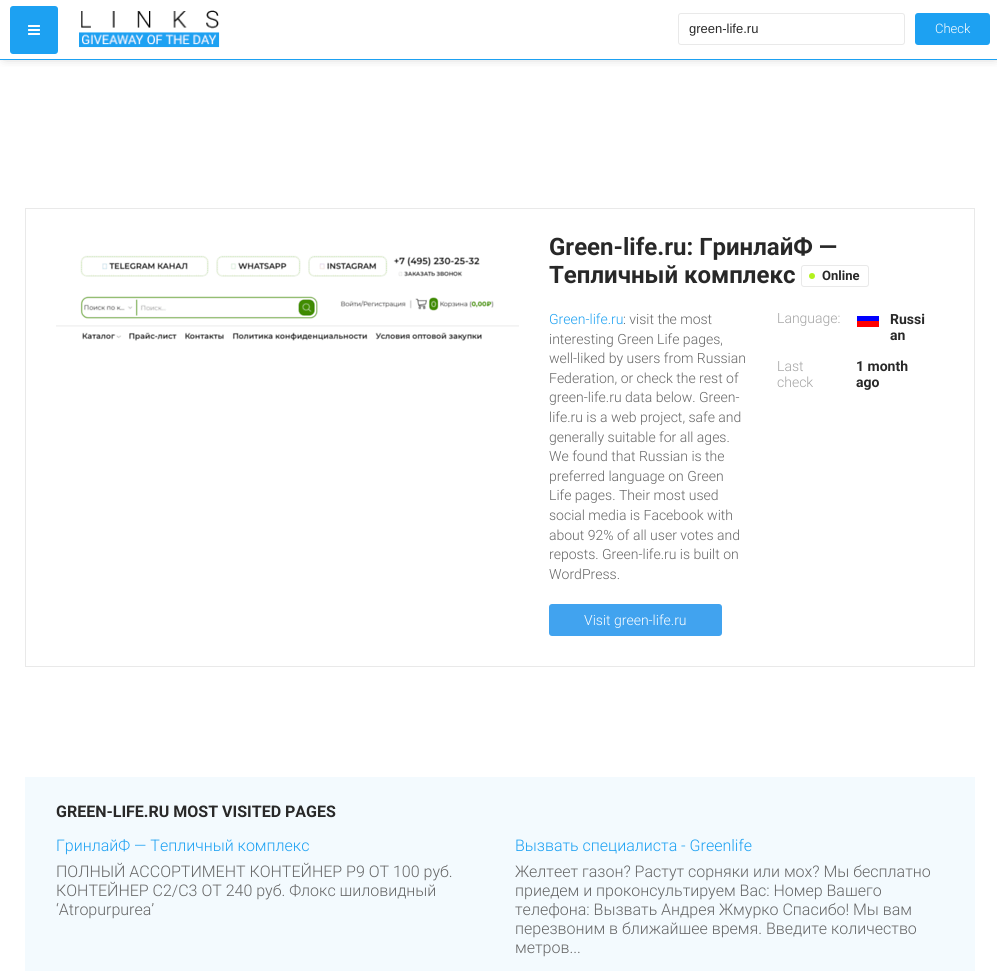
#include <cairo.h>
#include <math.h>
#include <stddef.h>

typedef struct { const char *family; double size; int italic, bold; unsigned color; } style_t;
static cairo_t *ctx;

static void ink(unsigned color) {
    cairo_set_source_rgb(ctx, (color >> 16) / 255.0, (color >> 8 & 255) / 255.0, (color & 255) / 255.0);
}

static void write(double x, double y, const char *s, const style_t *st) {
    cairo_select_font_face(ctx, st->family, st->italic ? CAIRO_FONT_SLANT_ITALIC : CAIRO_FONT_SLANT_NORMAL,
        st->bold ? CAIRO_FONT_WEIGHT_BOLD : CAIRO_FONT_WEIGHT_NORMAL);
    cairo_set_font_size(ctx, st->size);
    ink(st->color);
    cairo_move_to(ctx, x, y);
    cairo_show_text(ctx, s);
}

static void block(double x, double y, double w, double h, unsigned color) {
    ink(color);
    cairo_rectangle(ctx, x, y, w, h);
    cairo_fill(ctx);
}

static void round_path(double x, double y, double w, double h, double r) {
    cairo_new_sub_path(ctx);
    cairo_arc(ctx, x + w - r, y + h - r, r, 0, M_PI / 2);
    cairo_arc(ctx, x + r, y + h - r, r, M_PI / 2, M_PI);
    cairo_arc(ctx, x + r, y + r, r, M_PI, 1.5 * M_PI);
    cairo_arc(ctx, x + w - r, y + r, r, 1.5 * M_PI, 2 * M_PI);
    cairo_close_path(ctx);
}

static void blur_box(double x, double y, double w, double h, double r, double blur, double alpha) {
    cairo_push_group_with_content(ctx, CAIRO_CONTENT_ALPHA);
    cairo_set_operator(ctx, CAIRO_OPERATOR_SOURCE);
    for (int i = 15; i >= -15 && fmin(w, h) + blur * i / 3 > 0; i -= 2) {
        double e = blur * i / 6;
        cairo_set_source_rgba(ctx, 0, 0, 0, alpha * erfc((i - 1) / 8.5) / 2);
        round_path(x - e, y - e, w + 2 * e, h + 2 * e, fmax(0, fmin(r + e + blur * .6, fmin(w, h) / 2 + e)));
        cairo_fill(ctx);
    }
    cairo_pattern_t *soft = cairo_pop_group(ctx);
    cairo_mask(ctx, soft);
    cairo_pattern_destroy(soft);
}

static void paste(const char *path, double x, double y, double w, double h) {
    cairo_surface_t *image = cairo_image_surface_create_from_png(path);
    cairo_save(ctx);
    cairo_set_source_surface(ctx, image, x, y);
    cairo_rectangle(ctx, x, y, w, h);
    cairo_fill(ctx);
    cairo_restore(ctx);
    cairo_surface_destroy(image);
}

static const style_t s1 = {"Liberation Sans", 13, 0, 0, 0x282828};
static const style_t s2 = {"Roboto Light", 13, 0, 0, 0xffffff};
static const style_t s3 = {"Roboto", 24, 0, 1, 0x282828};
static const style_t s4 = {"Roboto", 13, 0, 1, 0x282828};
static const style_t s5 = {"Roboto Light", 14, 0, 0, 0x1da1f2};
static const style_t s6 = {"Roboto Light", 14, 0, 0, 0x666666};
static const style_t s7 = {"Roboto Light", 14, 0, 0, 0xffffff};
static const style_t s8 = {"Roboto Light", 14, 0, 0, 0xa4a4a4};
static const style_t s9 = {"Roboto", 14, 0, 1, 0x282828};
static const style_t s10 = {"Roboto", 16, 0, 1, 0x282828};
static const style_t s11 = {"Roboto Light", 16, 0, 0, 0x1da1f2};
static const style_t s12 = {"Roboto Light", 16, 0, 0, 0x666666};

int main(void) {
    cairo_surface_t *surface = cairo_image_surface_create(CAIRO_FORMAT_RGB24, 997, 971);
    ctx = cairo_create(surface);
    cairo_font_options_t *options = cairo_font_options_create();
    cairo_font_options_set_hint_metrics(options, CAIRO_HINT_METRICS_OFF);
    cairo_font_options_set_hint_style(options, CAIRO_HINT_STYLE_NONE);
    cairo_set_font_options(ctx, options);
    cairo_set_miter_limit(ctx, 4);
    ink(0xffffff);
    cairo_paint(ctx);
    cairo_save(ctx);
    cairo_rectangle(ctx, 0, 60, 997, 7);
    cairo_clip(ctx);
    ink(0x999999);
    blur_box(5, 5, 990, 50, 0, 6, 1);
    cairo_restore(ctx);
    block(0, 59, 997, 1, 0x1da1f2);
    round_path(10, 6, 48, 48, 3);
    cairo_fill(ctx);
    paste("pic1.png", 28, 25, 12, 10);
    paste("pic2.png", 79, 10, 141, 38);
    round_path(678.5, 13.5, 226, 31, 2.5);
    ink(0xe9e9e9);
    cairo_set_line_width(ctx, 1);
    cairo_stroke(ctx);
    write(689, 33, "green-life.ru", &s1);
    ink(0x1da1f2);
    round_path(915, 13, 75, 32, 3);
    cairo_fill(ctx);
    write(935, 33, "Check", &s2);
    cairo_rectangle(ctx, 25.5, 208.5, 949, 458);
    ink(0xe9e9e9);
    cairo_stroke(ctx);
    paste("pic3.png", 56, 255, 463, 86);
    write(549, 255, "Green-life.ru: ГринлайФ —", &s3);
    write(549, 283, "Тепличный комплекс", &s3);
    round_path(801.5, 265.5, 67, 21, 2.5);
    ink(0xe9e9e9);
    cairo_stroke(ctx);
    ink(0xb3f21d);
    cairo_arc(ctx, 812, 276, 3, 0, 2 * M_PI);
    cairo_fill(ctx);
    write(822, 280, "Online", &s4);
    write(549, 324, "Green-life.ru", &s5);
    write(623, 324, ": visit the most", &s6);
    write(549, 344, "interesting Green Life pages,", &s6);
    write(549, 363, "well-liked by users from Russian", &s6);
    write(549, 383, "Federation, or check the rest of", &s6);
    write(549, 402, "green-life.ru data below. Green-", &s6);
    write(549, 422, "life.ru is a web project, safe and", &s6);
    write(549, 442, "generally suitable for all ages.", &s6);
    write(549, 461, "We found that Russian is the", &s6);
    write(549, 481, "preferred language on Green", &s6);
    write(549, 500, "Life pages. Their most used", &s6);
    write(549, 520, "social media is Facebook with", &s6);
    write(549, 540, "about 92% of all user votes and", &s6);
    write(549, 559, "reposts. Green-life.ru is built on", &s6);
    write(549, 579, "WordPress.", &s6);
    ink(0x41a3ef);
    round_path(549, 604, 173, 32, 3);
    cairo_fill(ctx);
    write(584, 625, "Visit green-life.ru", &s7);
    write(777, 323, "Language:", &s8);
    paste("pic4.png", 857, 316, 22, 11);
    write(890, 324, "Russi", &s9);
    write(890, 340, "an", &s9);
    write(777, 371, "Last", &s8);
    write(777, 387, "check", &s8);
    write(856, 371, "1 month", &s9);
    write(856, 387, "ago", &s9);
    block(25, 777, 950, 194, 0xf3fafe);
    write(56, 817, "GREEN-LIFE.RU MOST VISITED PAGES", &s10);
    write(56, 851, "ГринлайФ — Тепличный комплекс", &s11);
    write(56, 877, "ПОЛНЫЙ АССОРТИМЕНТ КОНТЕЙНЕР P9 ОТ 100 руб.", &s12);
    write(56, 896, "КОНТЕЙНЕР С2/С3 ОТ 240 руб. Флокс шиловидный", &s12);
    write(56, 915, "‘Atropurpurea’", &s12);
    write(515, 851, "Вызвать специалиста - Greenlife", &s11);
    write(515, 877, "Желтеет газон? Растут сорняки или мох? Мы бесплатно", &s12);
    write(515, 896, "приедем и проконсультируем Вас: Номер Вашего", &s12);
    write(515, 915, "телефона: Вызвать Андрея Жмурко Спасибо! Мы вам", &s12);
    write(515, 934, "перезвоним в ближайшее время. Введите количество", &s12);
    write(515, 953, "метров...", &s12);
    cairo_surface_write_to_png(surface, "screenshot.png");
    cairo_font_options_destroy(options);
    cairo_destroy(ctx);
    cairo_surface_destroy(surface);
    return 0;
}
